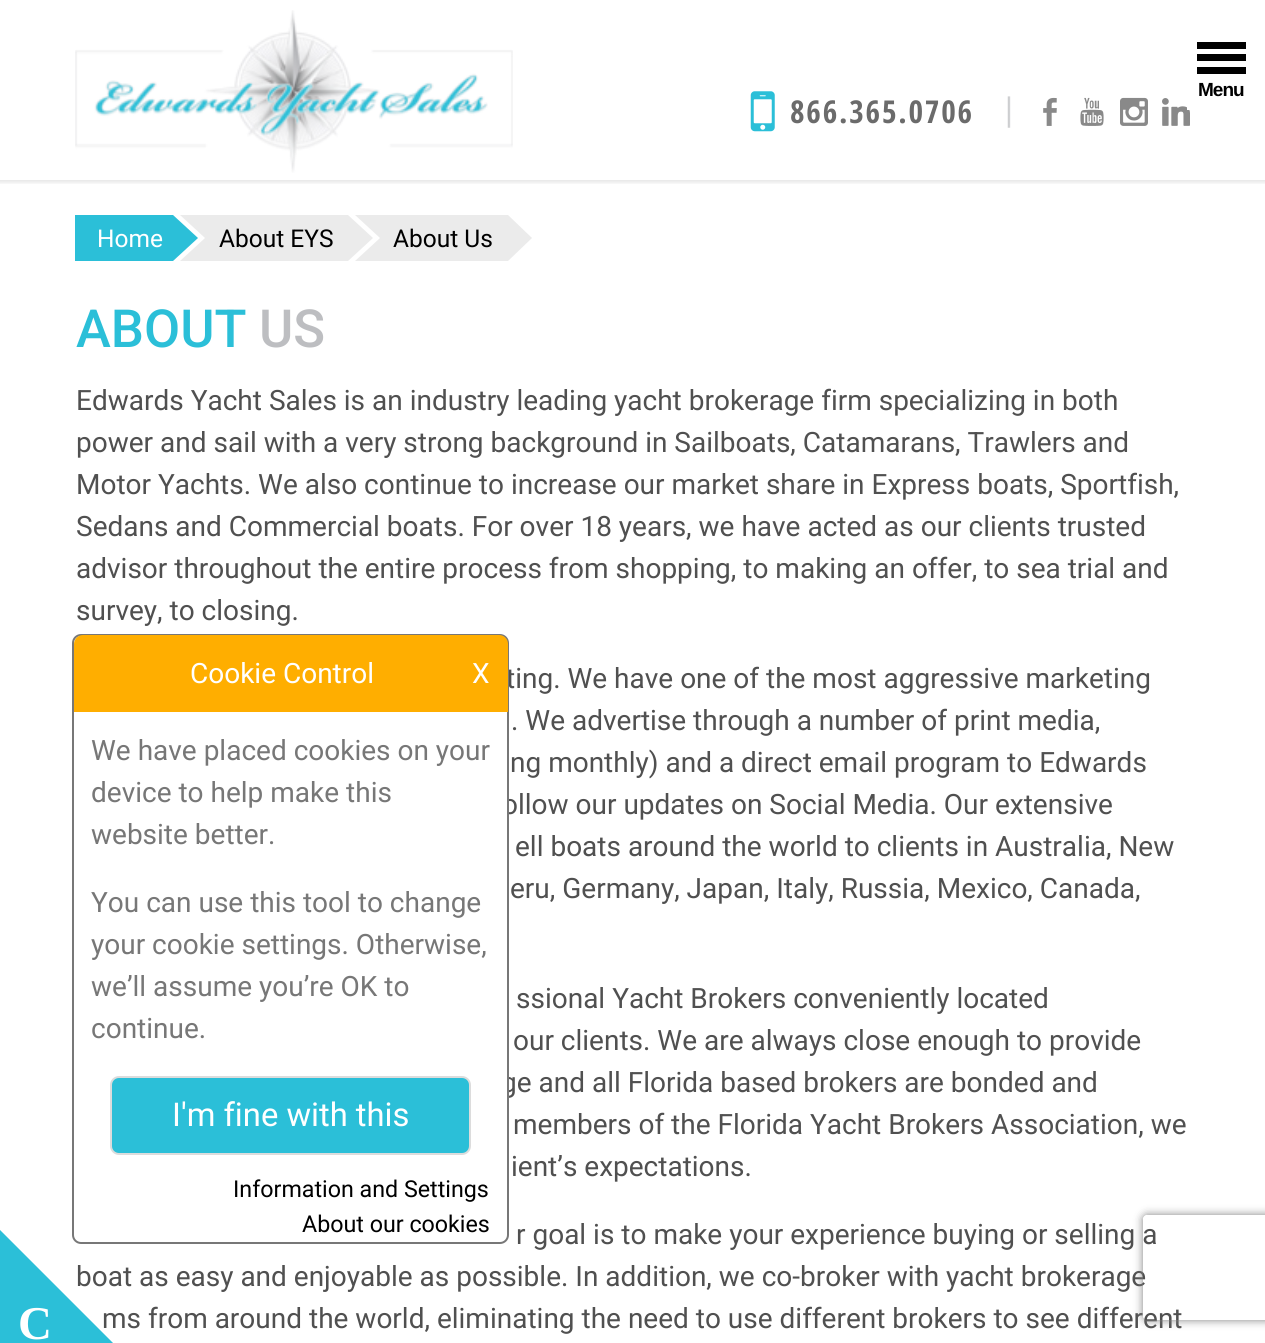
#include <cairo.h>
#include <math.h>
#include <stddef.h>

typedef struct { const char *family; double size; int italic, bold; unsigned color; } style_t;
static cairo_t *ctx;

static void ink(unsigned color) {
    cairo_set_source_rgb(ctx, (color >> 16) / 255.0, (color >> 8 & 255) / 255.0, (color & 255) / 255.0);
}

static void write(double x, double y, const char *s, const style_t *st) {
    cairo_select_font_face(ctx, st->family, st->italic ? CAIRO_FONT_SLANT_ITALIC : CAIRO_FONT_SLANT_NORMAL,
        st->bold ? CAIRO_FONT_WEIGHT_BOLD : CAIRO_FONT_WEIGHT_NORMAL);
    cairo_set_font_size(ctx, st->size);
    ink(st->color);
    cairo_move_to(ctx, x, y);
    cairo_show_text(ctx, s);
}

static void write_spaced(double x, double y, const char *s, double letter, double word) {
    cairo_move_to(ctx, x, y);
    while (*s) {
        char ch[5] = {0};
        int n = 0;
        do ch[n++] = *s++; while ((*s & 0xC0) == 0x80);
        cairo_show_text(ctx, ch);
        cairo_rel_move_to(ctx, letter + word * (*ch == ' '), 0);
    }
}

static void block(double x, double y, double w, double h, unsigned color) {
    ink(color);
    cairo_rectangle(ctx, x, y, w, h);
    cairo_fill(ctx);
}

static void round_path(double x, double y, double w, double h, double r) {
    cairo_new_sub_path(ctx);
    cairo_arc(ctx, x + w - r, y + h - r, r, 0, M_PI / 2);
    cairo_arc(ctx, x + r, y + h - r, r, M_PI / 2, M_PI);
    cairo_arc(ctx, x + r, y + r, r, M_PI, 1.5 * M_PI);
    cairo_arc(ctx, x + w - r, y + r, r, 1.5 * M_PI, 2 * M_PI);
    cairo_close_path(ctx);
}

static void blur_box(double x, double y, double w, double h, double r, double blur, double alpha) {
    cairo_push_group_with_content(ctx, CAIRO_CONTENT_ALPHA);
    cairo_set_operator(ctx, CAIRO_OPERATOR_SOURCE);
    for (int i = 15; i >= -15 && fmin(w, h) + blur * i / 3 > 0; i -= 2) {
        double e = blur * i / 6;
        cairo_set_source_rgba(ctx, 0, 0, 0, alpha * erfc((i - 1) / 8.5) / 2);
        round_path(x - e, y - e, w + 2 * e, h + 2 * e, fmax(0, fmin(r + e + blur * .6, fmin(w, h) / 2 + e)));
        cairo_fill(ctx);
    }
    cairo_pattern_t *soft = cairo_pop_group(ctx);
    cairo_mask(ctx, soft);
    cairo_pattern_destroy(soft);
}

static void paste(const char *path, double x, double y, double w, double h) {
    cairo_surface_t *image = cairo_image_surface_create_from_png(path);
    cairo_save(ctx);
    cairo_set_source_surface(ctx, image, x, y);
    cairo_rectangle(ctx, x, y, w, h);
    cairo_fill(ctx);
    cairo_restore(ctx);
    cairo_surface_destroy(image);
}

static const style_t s1 = {"Roboto", 24.5, 0, 0, 0xffffff};
static const style_t s2 = {"Roboto", 24.5, 0, 0, 0x000000};
static const style_t s3 = {"Roboto Medium", 52.5, 0, 0, 0x2bbfd8};
static const style_t s4 = {"Roboto Medium", 52.5, 0, 0, 0xbdbec1};
static const style_t s5 = {"Roboto", 28, 0, 0, 0x505050};
static const style_t s6 = {"Roboto", 28, 0, 0, 0xffffff};
static const style_t s7 = {"Roboto", 28, 0, 0, 0x777777};
static const style_t s8 = {"Roboto", 32.75, 0, 0, 0xffffff};
static const style_t s9 = {"Roboto", 23.25, 0, 0, 0x000000};
static const style_t s10 = {"Liberation Serif", 47, 0, 1, 0xffffff};

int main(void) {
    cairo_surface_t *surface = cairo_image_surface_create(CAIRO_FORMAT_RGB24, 1265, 1343);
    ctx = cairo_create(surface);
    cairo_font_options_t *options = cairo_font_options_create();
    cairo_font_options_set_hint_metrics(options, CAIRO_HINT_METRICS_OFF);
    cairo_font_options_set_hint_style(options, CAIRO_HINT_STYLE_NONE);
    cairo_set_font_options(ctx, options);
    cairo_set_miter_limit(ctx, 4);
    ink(0xffffff);
    cairo_paint(ctx);
    cairo_save(ctx);
    cairo_rectangle(ctx, 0, 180, 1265, 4);
    cairo_clip(ctx);
    ink(0x000000);
    blur_box(-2, -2, 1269, 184, 0, 2.5, 0.12);
    cairo_restore(ctx);
    paste("pic1.png", 75, 10, 438, 163);
    paste("pic7.png", 1162, 98, 28, 28);
    block(1187, 107, 3, 3, 0xffffff);
    block(1197, 54, 49, 7, 0x000000);
    block(1197, 42, 49, 7, 0x000000);
    block(1197, 67, 49, 7, 0x000000);
    cairo_select_font_face(ctx, "Liberation Sans", CAIRO_FONT_SLANT_NORMAL, CAIRO_FONT_WEIGHT_BOLD);
    cairo_set_font_size(ctx, 19);
    write_spaced(1198, 96, "Menu", -1, 0);
    paste("pic2.png", 750, 91, 25, 41);
    cairo_select_font_face(ctx, "Open Sans Condensed", CAIRO_FONT_SLANT_NORMAL, CAIRO_FONT_WEIGHT_BOLD);
    cairo_set_font_size(ctx, 31.5);
    ink(0x6b6b6b);
    write_spaced(790, 123, "866.365.0706", 1.75, 0);
    paste("pic3.png", 1007, 96, 4, 32);
    paste("pic4.png", 1043, 97, 14, 29);
    paste("pic5.png", 1080, 97, 24, 29);
    paste("pic6.png", 1120, 97, 28, 29);
    block(75, 215, 98, 46, 0x2bbfd8);
    write(97, 247, "Home", &s1);
    ink(0x2bbfd8);
    cairo_new_path(ctx);
    cairo_move_to(ctx, 173, 261);
    cairo_line_to(ctx, 173, 215);
    cairo_line_to(ctx, 198, 238);
    cairo_close_path(ctx);
    cairo_fill(ctx);
    block(205, 215, 143, 46, 0xebebeb);
    cairo_new_path(ctx);
    cairo_move_to(ctx, 180, 215);
    cairo_line_to(ctx, 205, 215);
    cairo_line_to(ctx, 205, 238);
    cairo_close_path(ctx);
    cairo_move_to(ctx, 205, 261);
    cairo_line_to(ctx, 180, 261);
    cairo_line_to(ctx, 205, 238);
    cairo_close_path(ctx);
    cairo_fill(ctx);
    write(219, 247, "About EYS", &s2);
    ink(0xebebeb);
    cairo_new_path(ctx);
    cairo_move_to(ctx, 348, 261);
    cairo_line_to(ctx, 348, 215);
    cairo_line_to(ctx, 373, 238);
    cairo_close_path(ctx);
    cairo_fill(ctx);
    block(380, 215, 128, 46, 0xebebeb);
    cairo_new_path(ctx);
    cairo_move_to(ctx, 355, 215);
    cairo_line_to(ctx, 380, 215);
    cairo_line_to(ctx, 380, 238);
    cairo_close_path(ctx);
    cairo_move_to(ctx, 380, 261);
    cairo_line_to(ctx, 355, 261);
    cairo_line_to(ctx, 380, 238);
    cairo_close_path(ctx);
    cairo_fill(ctx);
    write(393, 247, "About Us", &s2);
    ink(0xebebeb);
    cairo_new_path(ctx);
    cairo_move_to(ctx, 508, 261);
    cairo_line_to(ctx, 508, 215);
    cairo_line_to(ctx, 532, 238);
    cairo_close_path(ctx);
    cairo_fill(ctx);
    write(76, 347, "ABOUT", &s3);
    write(259, 347, "US", &s4);
    write(76, 410, "Edwards Yacht Sales is an industry leading yacht brokerage firm specializing in both", &s5);
    write(76, 452, "power and sail with a very strong background in Sailboats, Catamarans, Trawlers and", &s5);
    write(76, 494, "Motor Yachts. We also continue to increase our market share in Express boats, Sportfish,", &s5);
    write(76, 536, "Sedans and Commercial boats. For over 18 years, we have acted as our clients trusted", &s5);
    write(76, 578, "advisor throughout the entire process from shopping, to making an offer, to sea trial and", &s5);
    write(76, 620, "survey, to closing.", &s5);
    write(506, 688, "ting. We have one of the most aggressive marketing", &s5);
    write(511, 730, ". We advertise through a number of print media,", &s5);
    write(510, 772, "ng monthly) and a direct email program to Edwards", &s5);
    write(502, 814, "ollow our updates on Social Media. Our extensive", &s5);
    write(515, 856, "ell boats around the world to clients in Australia, New", &s5);
    write(510, 898, "eru, Germany, Japan, Italy, Russia, Mexico, Canada,", &s5);
    write(516, 1008, "ssional Yacht Brokers conveniently located", &s5);
    write(513, 1050, "our clients. We are always close enough to provide", &s5);
    write(501, 1092, "ge and all Florida based brokers are bonded and", &s5);
    write(513, 1134, "members of the Florida Yacht Brokers Association, we", &s5);
    write(511, 1176, "ient’s expectations.", &s5);
    write(516, 1244, "r goal is to make your experience buying or selling a", &s5);
    write(76, 1286, "boat as easy and enjoyable as possible. In addition, we co-broker with yacht brokerage", &s5);
    write(102, 1328, "ms from around the world, eliminating the need to use different brokers to see different", &s5);
    ink(0x2bbfd8);
    cairo_new_path(ctx);
    cairo_move_to(ctx, 0, 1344);
    cairo_line_to(ctx, 0, 1230);
    cairo_line_to(ctx, 114, 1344);
    cairo_close_path(ctx);
    cairo_fill(ctx);
    ink(0xffffff);
    round_path(73, 635, 435, 608, 8);
    cairo_fill_preserve(ctx);
    ink(0x777777);
    cairo_stroke(ctx);
    ink(0xffae00);
    cairo_new_path(ctx);
    cairo_move_to(ctx, 83, 635);
    cairo_line_to(ctx, 499, 635);
    cairo_curve_to(ctx, 504, 635, 508, 639, 508, 644);
    cairo_line_to(ctx, 508, 712);
    cairo_line_to(ctx, 74, 712);
    cairo_line_to(ctx, 74, 644);
    cairo_curve_to(ctx, 74, 639, 78, 635, 83, 635);
    cairo_close_path(ctx);
    cairo_fill(ctx);
    write(190, 683, "Cookie Control", &s6);
    write(472, 683, "X", &s6);
    write(91, 760, "We have placed cookies on your", &s7);
    write(91, 802, "device to help make this", &s7);
    write(91, 844, "website better.", &s7);
    write(91, 912, "You can use this tool to change", &s7);
    write(91, 954, "your cookie settings. Otherwise,", &s7);
    write(91, 996, "we’ll assume you’re OK to", &s7);
    write(91, 1038, "continue.", &s7);
    ink(0x2bbfd8);
    round_path(111, 1077, 359, 77, 8);
    cairo_fill_preserve(ctx);
    ink(0xdcdcdc);
    cairo_stroke(ctx);
    write(172, 1126, "I'm fine with this", &s8);
    write(233, 1197, "Information and Settings", &s9);
    write(302, 1232, "About our cookies", &s9);
    write(18, 1339, "C", &s10);
    cairo_save(ctx);
    cairo_set_fill_rule(ctx, CAIRO_FILL_RULE_EVEN_ODD);
    cairo_new_path(ctx);
    cairo_move_to(ctx, 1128, 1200);
    cairo_line_to(ctx, 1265, 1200);
    cairo_line_to(ctx, 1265, 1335);
    cairo_line_to(ctx, 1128, 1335);
    cairo_close_path(ctx);
    cairo_move_to(ctx, 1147, 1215);
    cairo_line_to(ctx, 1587, 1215);
    cairo_curve_to(ctx, 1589, 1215, 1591, 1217, 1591, 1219);
    cairo_line_to(ctx, 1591, 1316);
    cairo_curve_to(ctx, 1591, 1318, 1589, 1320, 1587, 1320);
    cairo_line_to(ctx, 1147, 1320);
    cairo_curve_to(ctx, 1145, 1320, 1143, 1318, 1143, 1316);
    cairo_line_to(ctx, 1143, 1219);
    cairo_curve_to(ctx, 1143, 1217, 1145, 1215, 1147, 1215);
    cairo_close_path(ctx);
    cairo_clip(ctx);
    ink(0x808080);
    blur_box(1143, 1215, 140, 105, 4, 4.5, 1);
    cairo_restore(ctx);
    cairo_surface_write_to_png(surface, "screenshot.png");
    cairo_font_options_destroy(options);
    cairo_destroy(ctx);
    cairo_surface_destroy(surface);
    return 0;
}
